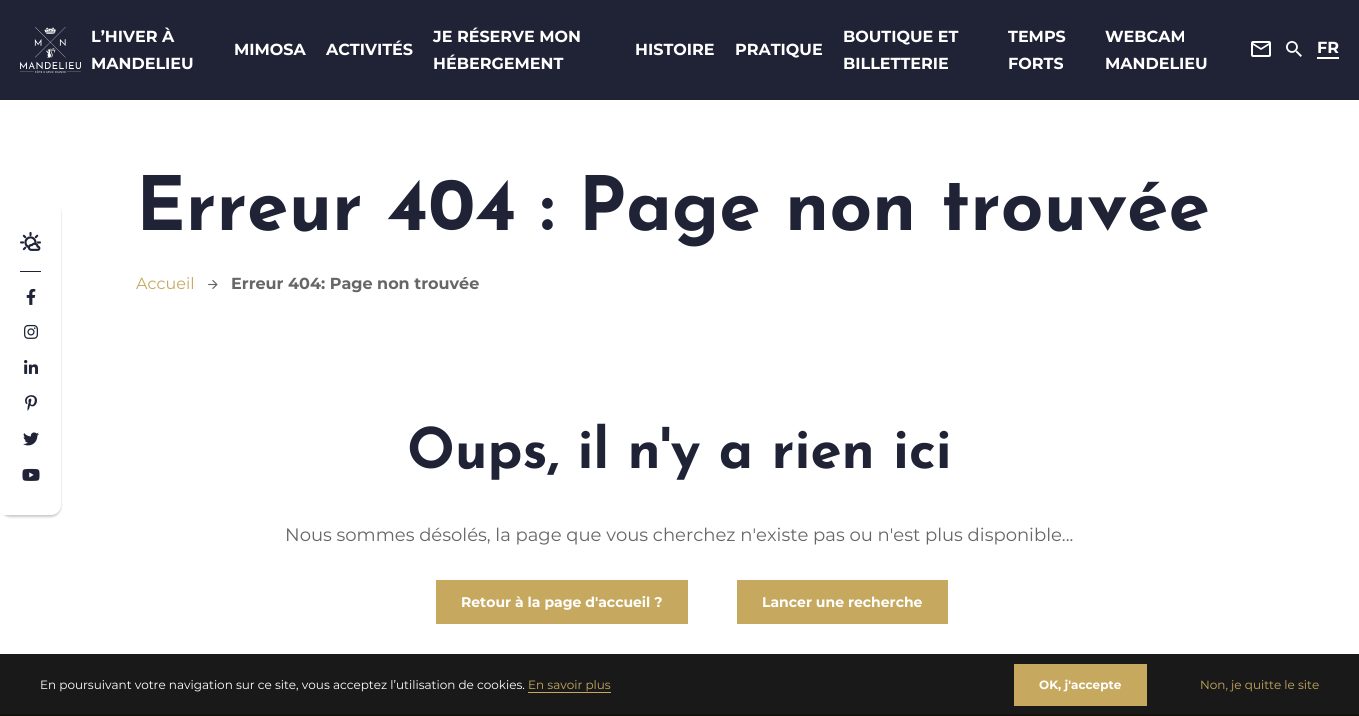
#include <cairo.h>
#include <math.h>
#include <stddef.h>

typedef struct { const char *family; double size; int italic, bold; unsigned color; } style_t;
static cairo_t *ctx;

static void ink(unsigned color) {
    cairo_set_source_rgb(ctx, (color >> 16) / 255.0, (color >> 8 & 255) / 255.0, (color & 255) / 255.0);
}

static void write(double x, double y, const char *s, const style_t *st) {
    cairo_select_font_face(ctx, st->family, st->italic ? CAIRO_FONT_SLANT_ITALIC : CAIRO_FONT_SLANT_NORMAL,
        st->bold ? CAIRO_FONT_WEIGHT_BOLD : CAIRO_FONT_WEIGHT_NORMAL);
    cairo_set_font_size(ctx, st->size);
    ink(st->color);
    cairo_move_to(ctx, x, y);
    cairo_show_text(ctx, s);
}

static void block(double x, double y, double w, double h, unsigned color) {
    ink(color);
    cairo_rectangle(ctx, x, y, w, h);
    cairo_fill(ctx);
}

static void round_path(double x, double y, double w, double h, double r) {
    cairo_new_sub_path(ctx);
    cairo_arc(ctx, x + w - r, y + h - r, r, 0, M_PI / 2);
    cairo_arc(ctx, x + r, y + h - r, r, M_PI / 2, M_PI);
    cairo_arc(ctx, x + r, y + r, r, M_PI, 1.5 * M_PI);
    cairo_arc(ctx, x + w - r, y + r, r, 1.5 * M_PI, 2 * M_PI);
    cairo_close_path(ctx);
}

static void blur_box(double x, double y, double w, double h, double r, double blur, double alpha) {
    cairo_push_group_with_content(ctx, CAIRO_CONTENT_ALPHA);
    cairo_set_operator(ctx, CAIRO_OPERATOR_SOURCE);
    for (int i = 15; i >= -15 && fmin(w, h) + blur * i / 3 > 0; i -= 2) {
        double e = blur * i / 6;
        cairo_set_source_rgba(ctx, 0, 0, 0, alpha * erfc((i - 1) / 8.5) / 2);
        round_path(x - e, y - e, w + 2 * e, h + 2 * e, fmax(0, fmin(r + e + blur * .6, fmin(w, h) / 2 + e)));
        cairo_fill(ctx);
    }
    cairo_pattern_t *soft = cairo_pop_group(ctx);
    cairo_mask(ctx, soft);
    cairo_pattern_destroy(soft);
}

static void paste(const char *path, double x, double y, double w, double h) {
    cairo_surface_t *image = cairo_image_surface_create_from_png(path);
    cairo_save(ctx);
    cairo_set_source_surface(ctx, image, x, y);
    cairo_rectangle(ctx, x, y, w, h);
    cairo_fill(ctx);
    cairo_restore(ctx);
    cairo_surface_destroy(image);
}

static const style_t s1 = {"Montserrat", 16, 0, 1, 0xffffff};
static const style_t s2 = {"Josefin Sans", 74.75, 0, 1, 0x1f2335};
static const style_t s3 = {"Montserrat", 16, 0, 0, 0xc6a85f};
static const style_t s4 = {"Montserrat", 16, 0, 1, 0x666666};
static const style_t s5 = {"Josefin Sans", 56.1, 0, 1, 0x1f2335};
static const style_t s6 = {"Montserrat", 18, 0, 0, 0x666666};
static const style_t s7 = {"Montserrat", 14, 0, 1, 0xffffff};
static const style_t s8 = {"Montserrat", 12, 0, 0, 0xffffff};
static const style_t s9 = {"Montserrat", 12, 0, 0, 0xc6a85f};
static const style_t s10 = {"Montserrat", 12, 0, 1, 0xffffff};

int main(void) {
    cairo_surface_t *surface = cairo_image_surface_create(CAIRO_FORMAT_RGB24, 1359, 716);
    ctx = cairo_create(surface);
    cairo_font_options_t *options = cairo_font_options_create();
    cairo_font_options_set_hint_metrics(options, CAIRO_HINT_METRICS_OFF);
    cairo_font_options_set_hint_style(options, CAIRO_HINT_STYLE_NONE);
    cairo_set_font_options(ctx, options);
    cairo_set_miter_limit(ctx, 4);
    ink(0xffffff);
    cairo_paint(ctx);
    block(0, 654, 1359, 60, 0x191919);
    block(0, 0, 1359, 100, 0x1f2335);
    paste("pic1.png", 20, 27, 61, 46);
    write(91, 42, "L’HIVER À", &s1);
    write(91, 69, "MANDELIEU", &s1);
    write(234, 55, "MIMOSA", &s1);
    write(326, 55, "ACTIVITÉS", &s1);
    write(433, 42, "JE RÉSERVE MON", &s1);
    write(433, 69, "HÉBERGEMENT", &s1);
    write(635, 55, "HISTOIRE", &s1);
    write(735, 55, "PRATIQUE", &s1);
    write(843, 42, "BOUTIQUE ET", &s1);
    write(843, 69, "BILLETTERIE", &s1);
    write(1008, 42, "TEMPS", &s1);
    write(1008, 69, "FORTS", &s1);
    write(1105, 42, "WEBCAM", &s1);
    write(1105, 69, "MANDELIEU", &s1);
    paste("pic2.png", 1251, 41, 20, 16);
    paste("pic3.png", 1286, 41, 16, 16);
    write(1317, 53, "FR", &s1);
    block(1317, 57, 22, 2, 0xffffff);
    write(136, 230, "Erreur 404 : Page non trouvée", &s2);
    write(136, 289, "Accueil", &s3);
    paste("pic4.png", 208, 280, 10, 9);
    write(231, 289, "Erreur 404: Page non trouvée", &s4);
    ink(0x000000);
    blur_box(0, 203, 61, 314, 10, 1, 0.2);
    ink(0xffffff);
    cairo_new_path(ctx);
    cairo_move_to(ctx, 0, 201);
    cairo_line_to(ctx, 51, 201);
    cairo_curve_to(ctx, 56.5, 201, 61, 205.5, 61, 211);
    cairo_line_to(ctx, 61, 505);
    cairo_curve_to(ctx, 61, 510.5, 56.5, 515, 51, 515);
    cairo_line_to(ctx, 0, 515);
    cairo_close_path(ctx);
    cairo_fill(ctx);
    paste("pic5.png", 20, 231, 21, 20);
    block(20, 271, 21, 1, 0x1f2335);
    paste("pic6.png", 26, 288, 10, 17);
    paste("pic7.png", 24, 324, 14, 15);
    paste("pic8.png", 24, 359, 14, 15);
    paste("pic9.png", 25, 395, 12, 16);
    paste("pic10.png", 23, 432, 16, 14);
    paste("pic11.png", 22, 468, 18, 13);
    write(407, 468, "Oups, il n'y a rien ici", &s5);
    write(285, 541, "Nous sommes désolés, la page que vous cherchez n'existe pas ou n'est plus disponible...", &s6);
    block(436, 580, 252, 44, 0xc6a85f);
    write(461, 607, "Retour à la page d'accueil ?", &s7);
    block(737, 580, 211, 44, 0xc6a85f);
    write(762, 607, "Lancer une recherche", &s7);
    block(0, 714, 1359, 2, 0x141109);
    write(40, 689, "En poursuivant votre navigation sur ce site, vous acceptez l’utilisation de cookies.", &s8);
    write(528, 689, "En savoir plus", &s9);
    block(528, 692, 83, 1, 0xc6a85f);
    block(1014, 664, 133, 42, 0xc6a85f);
    write(1039, 689, "OK, j'accepte", &s10);
    write(1200, 689, "Non, je quitte le site", &s9);
    cairo_surface_write_to_png(surface, "screenshot.png");
    cairo_font_options_destroy(options);
    cairo_destroy(ctx);
    cairo_surface_destroy(surface);
    return 0;
}
